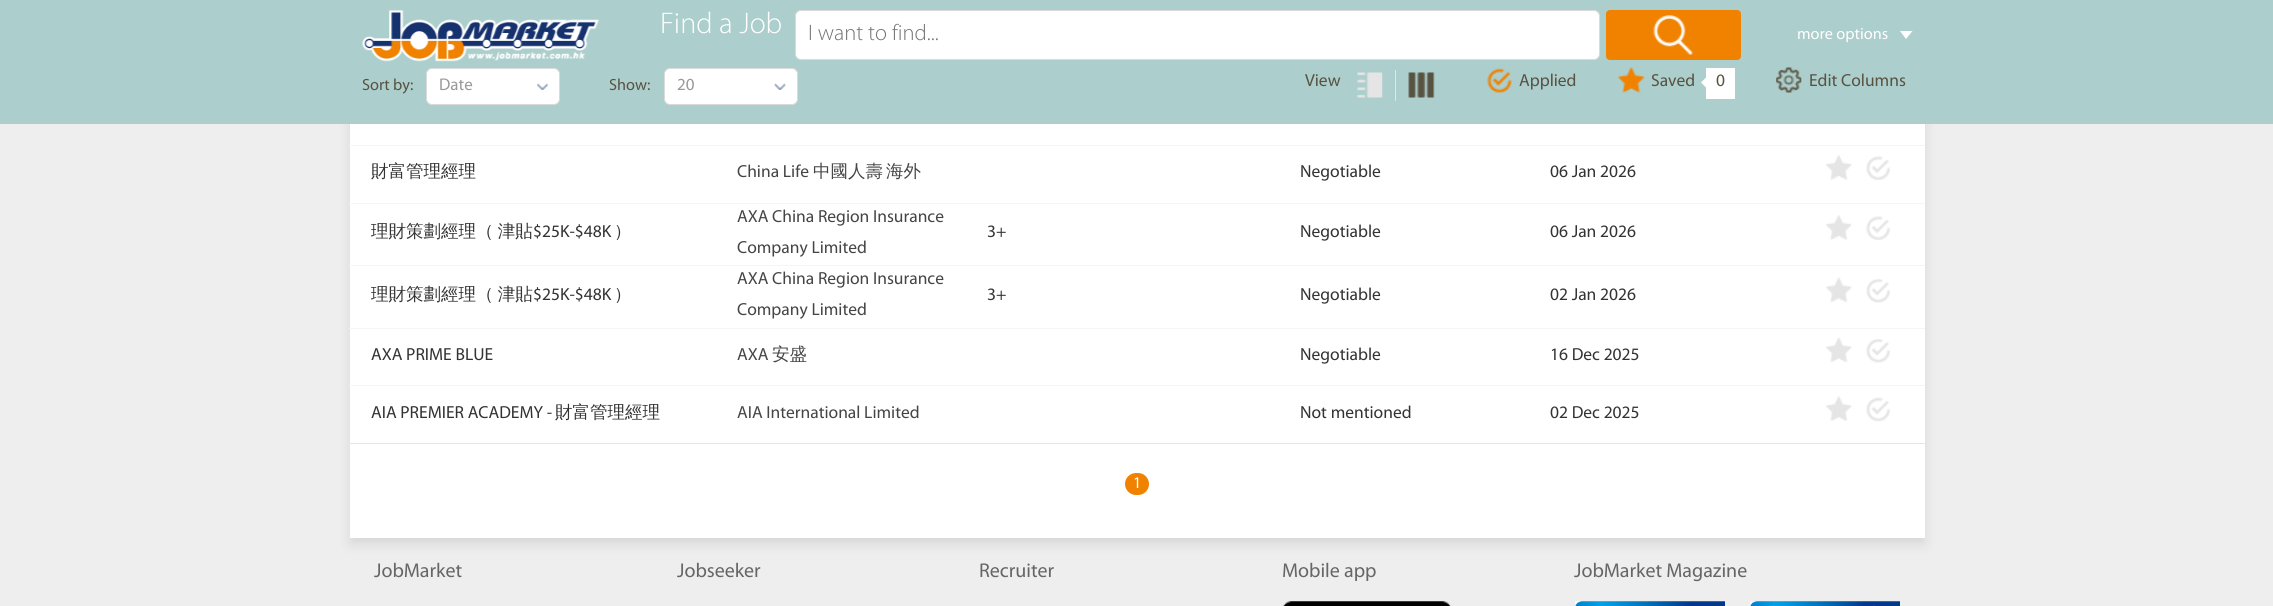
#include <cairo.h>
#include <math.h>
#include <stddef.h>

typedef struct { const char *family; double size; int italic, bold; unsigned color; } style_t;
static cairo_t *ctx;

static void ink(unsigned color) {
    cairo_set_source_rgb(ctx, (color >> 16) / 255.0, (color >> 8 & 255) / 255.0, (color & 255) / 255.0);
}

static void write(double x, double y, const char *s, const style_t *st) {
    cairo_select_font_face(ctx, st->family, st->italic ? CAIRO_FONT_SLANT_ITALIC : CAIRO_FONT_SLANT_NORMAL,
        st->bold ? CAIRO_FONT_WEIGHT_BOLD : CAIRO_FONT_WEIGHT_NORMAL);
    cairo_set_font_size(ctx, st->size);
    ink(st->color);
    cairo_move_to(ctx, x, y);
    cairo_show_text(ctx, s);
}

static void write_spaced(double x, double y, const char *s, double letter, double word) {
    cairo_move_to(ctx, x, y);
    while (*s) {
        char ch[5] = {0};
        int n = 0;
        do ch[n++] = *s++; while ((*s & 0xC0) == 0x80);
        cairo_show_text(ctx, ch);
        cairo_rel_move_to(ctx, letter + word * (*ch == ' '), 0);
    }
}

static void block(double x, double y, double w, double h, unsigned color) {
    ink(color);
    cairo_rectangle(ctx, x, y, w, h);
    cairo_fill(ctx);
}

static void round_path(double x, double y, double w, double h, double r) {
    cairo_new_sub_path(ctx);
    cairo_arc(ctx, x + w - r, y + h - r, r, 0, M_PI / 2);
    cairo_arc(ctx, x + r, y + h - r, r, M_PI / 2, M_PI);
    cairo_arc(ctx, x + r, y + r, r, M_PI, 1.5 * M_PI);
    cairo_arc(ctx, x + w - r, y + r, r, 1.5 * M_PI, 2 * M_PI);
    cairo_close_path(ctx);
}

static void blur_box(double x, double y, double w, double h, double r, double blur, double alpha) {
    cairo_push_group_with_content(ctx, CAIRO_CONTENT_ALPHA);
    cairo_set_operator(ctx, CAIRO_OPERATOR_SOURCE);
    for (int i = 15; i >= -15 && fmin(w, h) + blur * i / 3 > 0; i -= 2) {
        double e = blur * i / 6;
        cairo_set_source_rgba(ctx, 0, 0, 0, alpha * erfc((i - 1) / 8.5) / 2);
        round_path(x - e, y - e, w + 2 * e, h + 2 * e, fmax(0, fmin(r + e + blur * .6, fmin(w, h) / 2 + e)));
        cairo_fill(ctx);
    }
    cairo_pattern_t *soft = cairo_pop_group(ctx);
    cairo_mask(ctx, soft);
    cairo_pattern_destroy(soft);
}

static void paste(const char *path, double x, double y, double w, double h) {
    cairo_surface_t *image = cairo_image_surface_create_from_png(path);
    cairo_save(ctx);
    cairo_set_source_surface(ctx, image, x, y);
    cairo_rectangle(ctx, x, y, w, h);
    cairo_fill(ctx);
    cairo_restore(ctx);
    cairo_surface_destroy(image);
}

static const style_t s1 = {"Myriad Light", 30, 0, 0, 0xffffff};
static const style_t s2 = {"Myriad Light", 22.5, 0, 0, 0x757575};
static const style_t s3 = {"Myriad", 16.25, 0, 0, 0xffffff};
static const style_t s4 = {"Myriad", 16.25, 0, 0, 0x585241};
static const style_t s5 = {"Myriad", 17, 0, 0, 0x999999};
static const style_t s6 = {"Myriad", 17.5, 0, 0, 0x585241};
static const style_t s7 = {"WenQuanYi Zen Hei Medium", 17.5, 0, 0, 0x333333};
static const style_t s8 = {"Myriad", 17.5, 0, 0, 0x454545};
static const style_t s9 = {"WenQuanYi Zen Hei Medium", 17.5, 0, 0, 0x454545};
static const style_t s10 = {"Myriad", 17.5, 0, 0, 0x333333};
static const style_t s11 = {"Myriad", 20, 0, 0, 0x666666};

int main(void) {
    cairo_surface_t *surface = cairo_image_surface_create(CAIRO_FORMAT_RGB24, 2273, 606);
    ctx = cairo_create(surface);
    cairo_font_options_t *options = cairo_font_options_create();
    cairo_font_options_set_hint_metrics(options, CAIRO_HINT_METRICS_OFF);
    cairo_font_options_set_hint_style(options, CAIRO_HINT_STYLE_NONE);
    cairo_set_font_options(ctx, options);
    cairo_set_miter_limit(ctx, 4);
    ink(0xeeeeee);
    cairo_paint(ctx);
    ink(0x000000);
    blur_box(350, -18, 1575, 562, 0, 6, 0.1);
    block(0, 0, 2273, 124, 0xaccecc);
    paste("pic1.png", 362, 10, 238, 52);
    write(660, 33, "Find a Job", &s1);
    round_path(795.5, 10.5, 804, 49, 5.5);
    cairo_fill_preserve(ctx);
    ink(0xdadada);
    cairo_set_line_width(ctx, 1);
    cairo_stroke(ctx);
    write(808, 40, "I want to find...", &s2);
    ink(0xf08200);
    round_path(1606, 10, 135, 50, 4);
    cairo_fill(ctx);
    paste("pic2.png", 1653, 15, 41, 40);
    write(1797, 39, "more options", &s3);
    cairo_new_path(ctx);
    cairo_move_to(ctx, 1900, 31);
    cairo_line_to(ctx, 1912.5, 31);
    cairo_line_to(ctx, 1906, 39);
    cairo_close_path(ctx);
    cairo_fill(ctx);
    write(362, 90, "Sort by:", &s4);
    ink(0xffffff);
    round_path(426.5, 68.5, 133, 36, 5.5);
    cairo_fill_preserve(ctx);
    ink(0xdadada);
    cairo_stroke(ctx);
    write(439, 90, "Date", &s5);
    paste("pic3.png", 537, 83, 12, 7);
    write(609, 90, "Show:", &s4);
    ink(0xffffff);
    round_path(664.5, 68.5, 133, 36, 5.5);
    cairo_fill_preserve(ctx);
    ink(0xdadada);
    cairo_stroke(ctx);
    write(677, 90, "20", &s5);
    paste("pic4.png", 774, 83, 12, 7);
    write(1305, 86, "View", &s6);
    block(1395, 70, 1, 31, 0xe5e5e5);
    paste("pic5.png", 1357, 72, 26, 26);
    paste("pic6.png", 1408, 72, 27, 26);
    paste("pic7.png", 1487, 68, 25, 25);
    write(1519, 86, "Applied", &s6);
    paste("pic8.png", 1618, 67, 27, 26);
    write(1651, 86, "Saved", &s6);
    block(1706, 68, 29, 31, 0xffffff);
    cairo_new_path(ctx);
    cairo_move_to(ctx, 1706, 77.5);
    cairo_line_to(ctx, 1706, 87.5);
    cairo_line_to(ctx, 1701, 82.5);
    cairo_close_path(ctx);
    cairo_fill(ctx);
    write(1716, 86, "0", &s6);
    paste("pic9.png", 1776, 67, 26, 26);
    write(1809, 86, "Edit Columns", &s6);
    block(350, 124, 1575, 414, 0xffffff);
    block(349, 145, 1576, 1, 0xf5f5f5);
    block(349, 203, 1576, 1, 0xf5f5f5);
    paste("pic10.png", 1826, 155, 26, 25);
    paste("pic11.png", 1866, 156, 24, 24);
    write(371, 177, "財富管理經理", &s7);
    write(737, 177, "China Life", &s8);
    write(813, 177, "中國人壽", &s9);
    write(886, 177, "海外", &s9);
    write(1300, 177, "Negotiable", &s10);
    write(1550, 177, "06 Jan 2026", &s10);
    write(737, 222, "AXA China Region Insurance", &s8);
    write(737, 253, "Company Limited", &s8);
    block(349, 265, 1576, 1, 0xf5f5f5);
    paste("pic10.png", 1826, 215, 26, 25);
    paste("pic11.png", 1866, 216, 24, 24);
    cairo_select_font_face(ctx, "WenQuanYi Zen Hei Medium", CAIRO_FONT_SLANT_NORMAL, CAIRO_FONT_WEIGHT_NORMAL);
    ink(0x333333);
    write_spaced(371, 237, "理財策劃經理（ 津貼", 0, -1);
    write(533, 237, "$25K-$48K", &s10);
    write(614, 237, "）", &s7);
    write(987, 237, "3+", &s10);
    write(1300, 237, "Negotiable", &s10);
    write(1550, 237, "06 Jan 2026", &s10);
    write(737, 284, "AXA China Region Insurance", &s8);
    write(737, 315, "Company Limited", &s8);
    block(349, 328, 1576, 1, 0xf5f5f5);
    paste("pic12.png", 1826, 277, 26, 26);
    paste("pic13.png", 1866, 279, 24, 24);
    cairo_select_font_face(ctx, "WenQuanYi Zen Hei Medium", CAIRO_FONT_SLANT_NORMAL, CAIRO_FONT_WEIGHT_NORMAL);
    ink(0x333333);
    write_spaced(371, 300, "理財策劃經理（ 津貼", 0, -1);
    write(533, 300, "$25K-$48K", &s10);
    write(614, 300, "）", &s7);
    write(987, 300, "3+", &s10);
    write(1300, 300, "Negotiable", &s10);
    write(1550, 300, "02 Jan 2026", &s10);
    block(349, 385, 1576, 1, 0xf5f5f5);
    paste("pic12.png", 1826, 337, 26, 26);
    paste("pic13.png", 1866, 339, 24, 24);
    write(371, 360, "AXA PRIME BLUE", &s10);
    write(737, 360, "AXA", &s8);
    write(772, 360, "安盛", &s9);
    write(1300, 360, "Negotiable", &s10);
    write(1550, 360, "16 Dec 2025", &s10);
    write(371, 418, "AIA PREMIER ACADEMY -", &s10);
    write(555, 418, "財富管理經理", &s7);
    write(737, 418, "AIA International Limited", &s8);
    write(1300, 418, "Not mentioned", &s10);
    write(1550, 418, "02 Dec 2025", &s10);
    paste("pic14.png", 1826, 396, 26, 25);
    paste("pic15.png", 1866, 397, 24, 25);
    block(350, 443, 1575, 1, 0xe6e6e6);
    ink(0xf08200);
    round_path(1125, 473, 24, 22, 11);
    cairo_fill(ctx);
    write(1133, 488, "1", &s3);
    write(374, 577, "JobMarket", &s11);
    write(677, 577, "Jobseeker", &s11);
    write(979, 577, "Recruiter", &s11);
    write(1282, 577, "Mobile app", &s11);
    paste("pic16.png", 1283, 601, 168, 5);
    write(1574, 577, "JobMarket Magazine", &s11);
    paste("pic17.png", 1575, 601, 150, 5);
    paste("pic18.png", 1750, 601, 150, 5);
    cairo_surface_write_to_png(surface, "screenshot.png");
    cairo_font_options_destroy(options);
    cairo_destroy(ctx);
    cairo_surface_destroy(surface);
    return 0;
}
